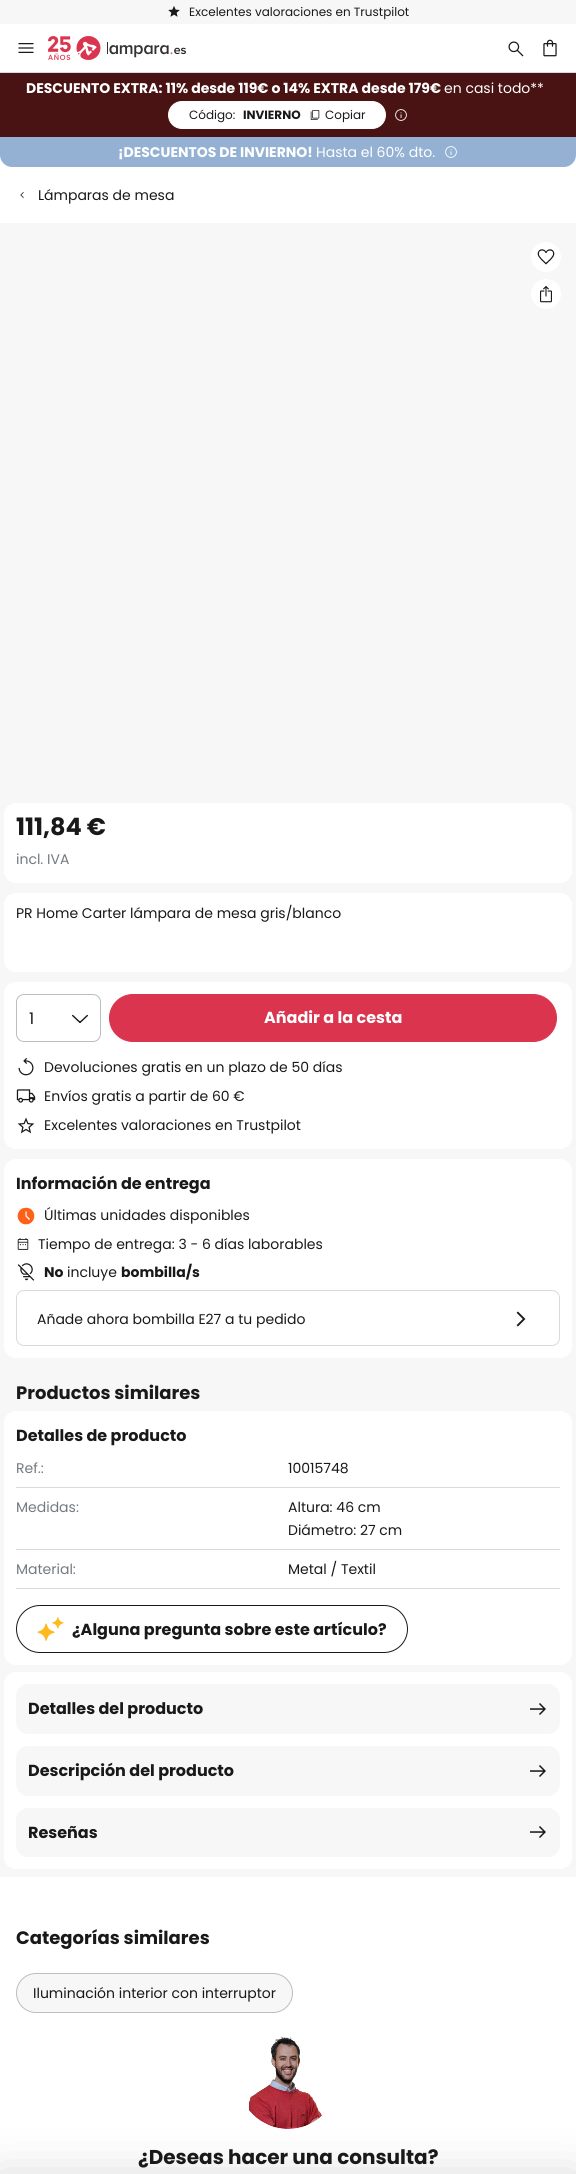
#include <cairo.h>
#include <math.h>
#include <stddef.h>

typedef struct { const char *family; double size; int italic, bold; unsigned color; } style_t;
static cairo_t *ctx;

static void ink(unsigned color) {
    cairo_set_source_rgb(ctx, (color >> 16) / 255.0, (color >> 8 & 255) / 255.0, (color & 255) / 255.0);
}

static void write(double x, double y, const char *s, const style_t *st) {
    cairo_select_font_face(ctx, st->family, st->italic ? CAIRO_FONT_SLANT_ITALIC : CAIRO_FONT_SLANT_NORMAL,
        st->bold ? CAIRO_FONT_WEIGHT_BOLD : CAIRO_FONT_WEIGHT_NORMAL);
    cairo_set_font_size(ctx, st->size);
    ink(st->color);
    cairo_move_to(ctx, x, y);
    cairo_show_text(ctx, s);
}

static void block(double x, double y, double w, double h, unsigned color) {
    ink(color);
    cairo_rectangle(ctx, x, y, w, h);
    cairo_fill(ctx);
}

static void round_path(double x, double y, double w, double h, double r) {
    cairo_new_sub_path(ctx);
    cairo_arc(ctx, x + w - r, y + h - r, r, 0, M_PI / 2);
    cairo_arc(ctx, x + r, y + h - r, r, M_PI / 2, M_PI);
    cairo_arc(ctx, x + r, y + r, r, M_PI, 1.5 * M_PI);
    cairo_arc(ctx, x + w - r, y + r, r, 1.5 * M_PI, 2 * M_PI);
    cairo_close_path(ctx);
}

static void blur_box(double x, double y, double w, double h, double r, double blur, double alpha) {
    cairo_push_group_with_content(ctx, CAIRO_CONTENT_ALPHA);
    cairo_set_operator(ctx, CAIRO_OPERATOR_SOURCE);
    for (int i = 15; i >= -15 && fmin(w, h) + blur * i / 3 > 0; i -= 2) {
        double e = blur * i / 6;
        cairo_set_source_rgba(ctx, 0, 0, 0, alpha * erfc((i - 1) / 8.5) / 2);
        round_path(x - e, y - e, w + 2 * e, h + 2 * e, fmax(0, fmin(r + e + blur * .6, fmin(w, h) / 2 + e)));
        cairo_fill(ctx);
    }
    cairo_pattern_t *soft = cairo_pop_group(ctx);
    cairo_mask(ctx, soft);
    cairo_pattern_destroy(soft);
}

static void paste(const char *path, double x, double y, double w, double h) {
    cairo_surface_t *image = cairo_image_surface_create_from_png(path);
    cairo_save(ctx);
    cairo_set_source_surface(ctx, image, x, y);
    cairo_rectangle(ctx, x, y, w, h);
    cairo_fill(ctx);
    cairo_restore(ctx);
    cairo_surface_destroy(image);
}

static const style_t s1 = {"Poppins", 12, 0, 0, 0x191919};
static const style_t s2 = {"Poppins", 14, 0, 1, 0xffffff};
static const style_t s3 = {"Poppins", 14, 0, 0, 0xffffff};
static const style_t s4 = {"Poppins", 12, 0, 1, 0x191919};
static const style_t s5 = {"Poppins", 14, 0, 0, 0x191919};
static const style_t s6 = {"Poppins", 24, 0, 1, 0x191919};
static const style_t s7 = {"Poppins", 14, 0, 0, 0x737b80};
static const style_t s8 = {"Poppins", 16, 0, 0, 0x191919};
static const style_t s9 = {"Poppins", 16, 0, 1, 0xffffff};
static const style_t s10 = {"Poppins", 16, 0, 1, 0x191919};
static const style_t s11 = {"Poppins", 14, 0, 1, 0x191919};
static const style_t s12 = {"Poppins", 18, 0, 1, 0x191919};
static const style_t s13 = {"Poppins", 20, 0, 1, 0x191919};

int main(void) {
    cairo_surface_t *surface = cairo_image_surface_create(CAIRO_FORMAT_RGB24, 576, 2174);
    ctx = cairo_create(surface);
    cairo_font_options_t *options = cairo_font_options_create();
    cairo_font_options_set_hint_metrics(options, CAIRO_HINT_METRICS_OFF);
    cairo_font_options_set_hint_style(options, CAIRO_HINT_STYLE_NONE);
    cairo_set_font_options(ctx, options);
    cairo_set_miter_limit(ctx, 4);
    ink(0xffffff);
    cairo_paint(ctx);
    block(0, 72, 576, 1, 0xd7dbdd);
    block(0, 0, 576, 24, 0xf7f7f8);
    paste("pic1.png", 168, 6, 12, 11);
    write(189, 16, "Excelentes valoraciones en Trustpilot", &s1);
    paste("pic2.png", 18, 43, 16, 10);
    paste("pic3.png", 48, 36, 138, 24);
    paste("pic4.png", 508, 41, 16, 16);
    paste("pic5.png", 543, 39, 14, 18);
    block(0, 73, 576, 64, 0x491313);
    write(26, 93, "DESCUENTO EXTRA: 11% desde 119€ o 14% EXTRA desde 179€", &s2);
    write(444, 93, "en casi todo**", &s3);
    round_path(168.5, 101.5, 217, 27, 13.5);
    cairo_fill_preserve(ctx);
    cairo_set_line_width(ctx, 1);
    cairo_stroke(ctx);
    write(189, 119, "Código:", &s1);
    write(243, 119, "INVIERNO", &s4);
    paste("pic6.png", 310, 110, 10, 10);
    write(325, 119, "Copiar", &s1);
    paste("pic7.png", 395, 109, 12, 12);
    ink(0x94b1d3);
    cairo_new_path(ctx);
    cairo_move_to(ctx, 0, 137);
    cairo_line_to(ctx, 576, 137);
    cairo_line_to(ctx, 576, 155);
    cairo_curve_to(ctx, 576, 161.5, 570.5, 167, 564, 167);
    cairo_line_to(ctx, 12, 167);
    cairo_curve_to(ctx, 5.5, 167, 0, 161.5, 0, 155);
    cairo_close_path(ctx);
    cairo_fill(ctx);
    write(118, 157, "¡DESCUENTOS DE INVIERNO!", &s2);
    write(316, 157, "Hasta el 60% dto.", &s3);
    paste("pic8.png", 445, 146, 12, 12);
    paste("pic9.png", 20, 192, 4, 6);
    write(38, 200, "Lámparas de mesa", &s5);
    block(0, 223, 576, 1144, 0xf7f7f8);
    ink(0xffffff);
    cairo_new_path(ctx);
    cairo_arc(ctx, 546, 257, 15, 0, 2 * M_PI);
    cairo_fill(ctx);
    paste("pic10.png", 537, 249, 18, 16);
    cairo_arc(ctx, 546, 294, 15, 0, 2 * M_PI);
    cairo_fill(ctx);
    paste("pic11.png", 540, 285, 12, 18);
    round_path(4, 803, 568, 80, 12);
    cairo_fill(ctx);
    write(16, 835, "111,84 €", &s6);
    write(16, 864, "incl. IVA", &s7);
    ink(0xffffff);
    round_path(4, 893, 568, 79, 12);
    cairo_fill(ctx);
    write(16, 918, "PR Home Carter lámpara de mesa gris/blanco", &s5);
    ink(0xffffff);
    round_path(4, 982, 568, 167, 12);
    cairo_fill(ctx);
    round_path(16.5, 994.5, 84, 47, 7.5);
    ink(0xb9bec2);
    cairo_stroke(ctx);
    write(29, 1024, "1", &s8);
    paste("pic12.png", 72, 1014, 16, 10);
    ink(0xda344e);
    round_path(109.5, 994.5, 447, 47, 23.5);
    cairo_fill_preserve(ctx);
    cairo_stroke(ctx);
    write(264, 1023, "Añadir a la cesta", &s9);
    paste("pic22.png", 248, 2036, 74, 93);
    ink(0x191919);
    blur_box(0, 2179, 576, 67, 0, 24, 0.2);
    paste("pic13.png", 18, 1058, 16, 18);
    write(44, 1072, "Devoluciones gratis en un plazo de 50 días", &s5);
    paste("pic14.png", 16, 1089, 20, 14);
    write(44, 1101, "Envíos gratis a partir de 60 €", &s5);
    paste("pic15.png", 17, 1117, 18, 17);
    write(44, 1130, "Excelentes valoraciones en Trustpilot", &s5);
    ink(0xffffff);
    round_path(4, 1159, 568, 199, 12);
    cairo_fill(ctx);
    write(16, 1189, "Información de entrega", &s10);
    paste("pic16.png", 17, 1207, 18, 18);
    write(44, 1220, "Últimas unidades disponibles", &s5);
    paste("pic17.png", 17, 1238, 12, 12);
    write(38, 1249, "Tiempo de entrega: 3 - 6 días laborables", &s5);
    paste("pic18.png", 17, 1263, 18, 18);
    write(44, 1277, "No", &s11);
    write(67, 1277, "incluye", &s5);
    write(121, 1277, "bombilla/s", &s11);
    round_path(16.5, 1290.5, 543, 55, 7.5);
    ink(0xd7dbdd);
    cairo_stroke(ctx);
    write(37, 1324, "Añade ahora bombilla E27 a tu pedido", &s5);
    paste("pic19.png", 516, 1311, 10, 16);
    block(0, 1367, 576, 510, 0xf7f7f8);
    write(16, 1399, "Productos similares", &s12);
    ink(0xffffff);
    round_path(4, 1411, 568, 254, 12);
    cairo_fill(ctx);
    write(16, 1441, "Detalles de producto", &s10);
    block(16, 1487, 544, 1, 0xd7dbdd);
    write(16, 1473, "Ref.:", &s7);
    write(288, 1473, "10015748", &s5);
    block(16, 1549, 544, 1, 0xd7dbdd);
    write(16, 1512, "Medidas:", &s7);
    write(288, 1512, "Altura: 46 cm", &s5);
    write(288, 1535, "Diámetro: 27 cm", &s5);
    block(16, 1588, 544, 1, 0xd7dbdd);
    write(16, 1574, "Material:", &s7);
    write(288, 1574, "Metal / Textil", &s5);
    round_path(16.5, 1605.5, 391, 47, 23.5);
    cairo_stroke(ctx);
    paste("pic20.png", 37, 1617, 27, 24);
    write(72, 1635, "¿Alguna pregunta sobre este artículo?", &s10);
    ink(0xffffff);
    round_path(4, 1672, 568, 197, 12);
    cairo_fill(ctx);
    ink(0xf7f7f8);
    round_path(16, 1684, 544, 50, 12);
    cairo_fill(ctx);
    write(28, 1714, "Detalles del producto", &s10);
    paste("pic21.png", 530, 1703, 16, 12);
    ink(0xf7f7f8);
    round_path(16, 1746, 544, 50, 12);
    cairo_fill(ctx);
    write(28, 1776, "Descripción del producto", &s10);
    paste("pic21.png", 530, 1765, 16, 12);
    ink(0xf7f7f8);
    round_path(16, 1808, 544, 49, 12);
    cairo_fill(ctx);
    write(28, 1838, "Reseñas", &s10);
    paste("pic21.png", 530, 1826, 16, 12);
    write(16, 1944, "Categorías similares", &s12);
    ink(0xf7f7f8);
    round_path(16.5, 1973.5, 276, 39, 19.5);
    cairo_fill_preserve(ctx);
    ink(0xb9bec2);
    cairo_stroke(ctx);
    write(33, 1998, "Iluminación interior con interruptor", &s5);
    write(138, 2164, "¿Deseas hacer una consulta?", &s13);
    cairo_surface_write_to_png(surface, "screenshot.png");
    cairo_font_options_destroy(options);
    cairo_destroy(ctx);
    cairo_surface_destroy(surface);
    return 0;
}
